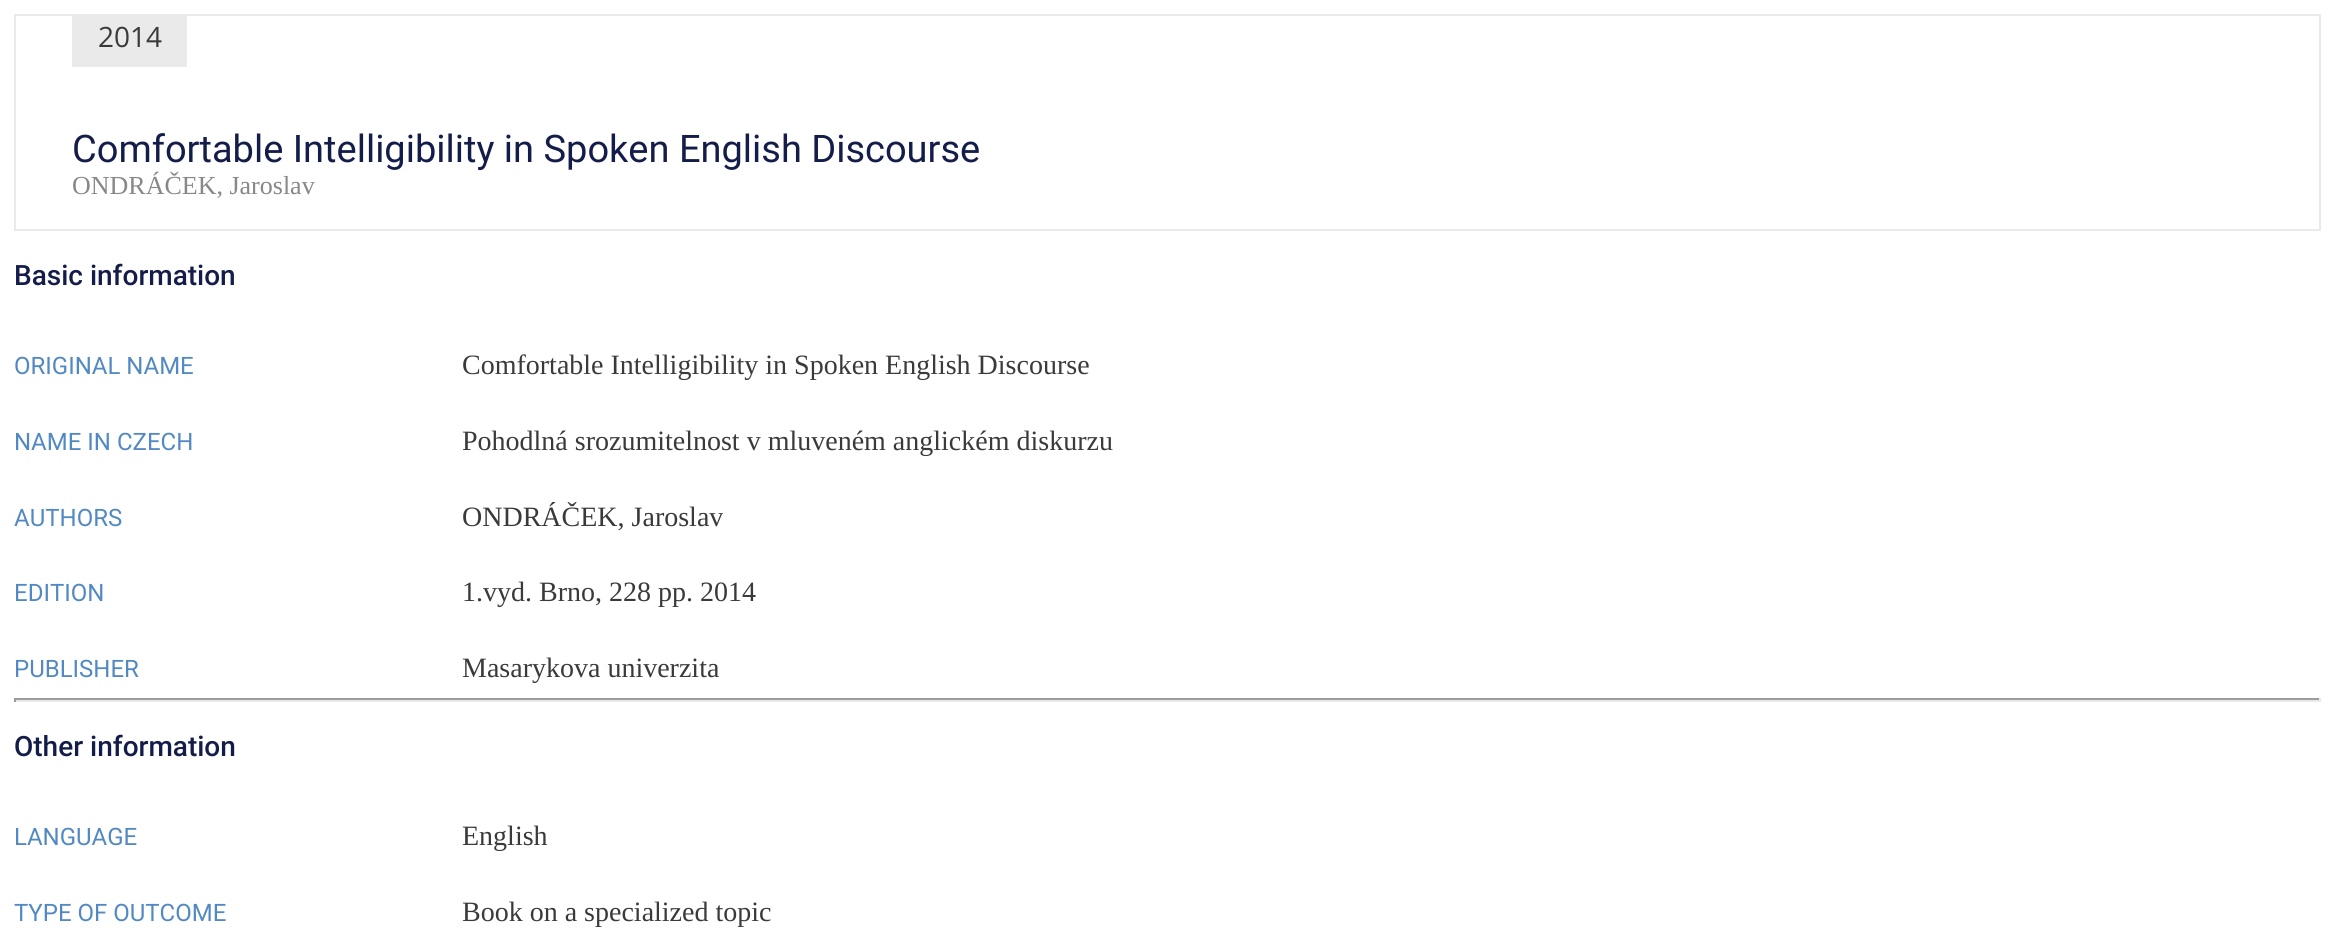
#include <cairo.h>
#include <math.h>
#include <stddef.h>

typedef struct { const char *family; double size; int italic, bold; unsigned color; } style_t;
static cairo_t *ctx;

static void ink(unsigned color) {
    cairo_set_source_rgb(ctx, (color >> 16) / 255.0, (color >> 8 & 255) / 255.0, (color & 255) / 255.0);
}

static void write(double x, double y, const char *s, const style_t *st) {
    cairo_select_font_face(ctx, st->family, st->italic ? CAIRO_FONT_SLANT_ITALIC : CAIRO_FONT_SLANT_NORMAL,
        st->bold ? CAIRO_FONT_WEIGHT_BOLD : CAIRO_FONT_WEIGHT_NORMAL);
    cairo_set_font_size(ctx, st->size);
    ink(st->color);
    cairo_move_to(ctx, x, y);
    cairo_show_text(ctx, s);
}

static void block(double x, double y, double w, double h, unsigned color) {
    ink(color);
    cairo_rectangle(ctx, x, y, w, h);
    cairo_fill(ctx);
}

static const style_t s1 = {"Open Sans", 28, 0, 0, 0x3a3a3a};
static const style_t s2 = {"Roboto", 38, 0, 0, 0x141c4a};
static const style_t s3 = {"Liberation Serif", 26, 0, 0, 0x888888};
static const style_t s4 = {"Roboto Medium", 28, 0, 0, 0x141c4a};
static const style_t s5 = {"Roboto", 24, 0, 0, 0x5389c2};
static const style_t s6 = {"Liberation Serif", 28, 0, 0, 0x3a3a3a};

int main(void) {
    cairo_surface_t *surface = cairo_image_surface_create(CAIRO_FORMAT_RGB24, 2333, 933);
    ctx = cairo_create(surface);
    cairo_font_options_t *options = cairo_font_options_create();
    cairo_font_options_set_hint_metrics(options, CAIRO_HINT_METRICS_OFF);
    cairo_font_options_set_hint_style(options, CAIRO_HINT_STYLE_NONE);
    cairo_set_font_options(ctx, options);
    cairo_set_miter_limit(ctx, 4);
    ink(0xffffff);
    cairo_paint(ctx);
    cairo_rectangle(ctx, 15, 15, 2305, 215);
    ink(0xeaeaea);
    cairo_stroke(ctx);
    block(72, 16, 115, 51, 0xeaeaea);
    write(98, 47, "2014", &s1);
    write(72, 162, "Comfortable Intelligibility in Spoken English Discourse", &s2);
    write(72, 194, "ONDRÁČEK, Jaroslav", &s3);
    write(14, 285, "Basic information", &s4);
    write(14, 374, "ORIGINAL NAME", &s5);
    write(462, 374, "Comfortable Intelligibility in Spoken English Discourse", &s6);
    write(14, 450, "NAME IN CZECH", &s5);
    write(462, 450, "Pohodlná srozumitelnost v mluveném anglickém diskurzu", &s6);
    write(14, 526, "AUTHORS", &s5);
    write(462, 526, "ONDRÁČEK, Jaroslav", &s6);
    write(14, 601, "EDITION", &s5);
    write(462, 601, "1.vyd. Brno, 228 pp. 2014", &s6);
    write(14, 677, "PUBLISHER", &s5);
    write(462, 677, "Masarykova univerzita", &s6);
    block(14, 698, 2307, 2, 0x9c9c9c);
    block(2319, 698, 2, 4, 0xeaeaea);
    block(14, 700, 2307, 2, 0xeaeaea);
    block(14, 698, 2, 4, 0x9c9c9c);
    write(14, 756, "Other information", &s4);
    write(14, 845, "LANGUAGE", &s5);
    write(462, 845, "English", &s6);
    write(14, 921, "TYPE OF OUTCOME", &s5);
    write(462, 921, "Book on a specialized topic", &s6);
    cairo_surface_write_to_png(surface, "screenshot.png");
    cairo_font_options_destroy(options);
    cairo_destroy(ctx);
    cairo_surface_destroy(surface);
    return 0;
}
